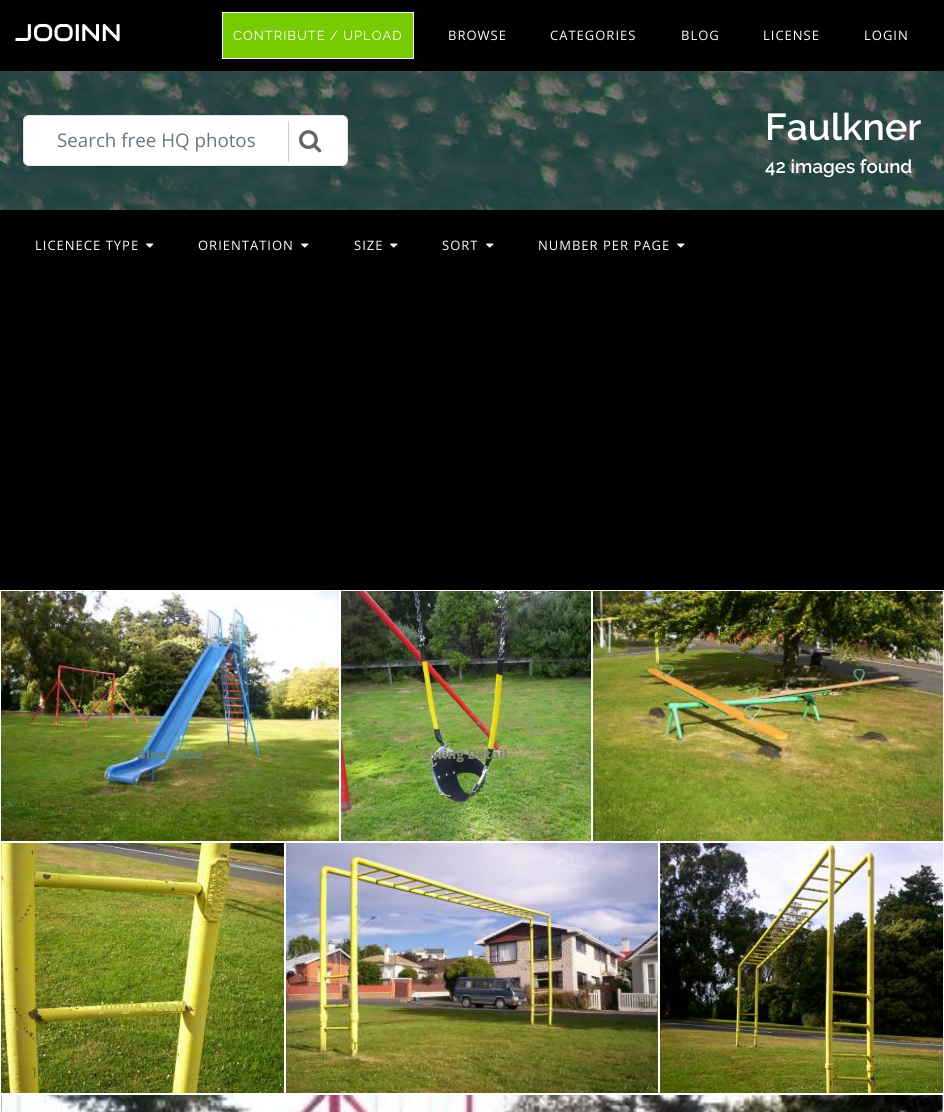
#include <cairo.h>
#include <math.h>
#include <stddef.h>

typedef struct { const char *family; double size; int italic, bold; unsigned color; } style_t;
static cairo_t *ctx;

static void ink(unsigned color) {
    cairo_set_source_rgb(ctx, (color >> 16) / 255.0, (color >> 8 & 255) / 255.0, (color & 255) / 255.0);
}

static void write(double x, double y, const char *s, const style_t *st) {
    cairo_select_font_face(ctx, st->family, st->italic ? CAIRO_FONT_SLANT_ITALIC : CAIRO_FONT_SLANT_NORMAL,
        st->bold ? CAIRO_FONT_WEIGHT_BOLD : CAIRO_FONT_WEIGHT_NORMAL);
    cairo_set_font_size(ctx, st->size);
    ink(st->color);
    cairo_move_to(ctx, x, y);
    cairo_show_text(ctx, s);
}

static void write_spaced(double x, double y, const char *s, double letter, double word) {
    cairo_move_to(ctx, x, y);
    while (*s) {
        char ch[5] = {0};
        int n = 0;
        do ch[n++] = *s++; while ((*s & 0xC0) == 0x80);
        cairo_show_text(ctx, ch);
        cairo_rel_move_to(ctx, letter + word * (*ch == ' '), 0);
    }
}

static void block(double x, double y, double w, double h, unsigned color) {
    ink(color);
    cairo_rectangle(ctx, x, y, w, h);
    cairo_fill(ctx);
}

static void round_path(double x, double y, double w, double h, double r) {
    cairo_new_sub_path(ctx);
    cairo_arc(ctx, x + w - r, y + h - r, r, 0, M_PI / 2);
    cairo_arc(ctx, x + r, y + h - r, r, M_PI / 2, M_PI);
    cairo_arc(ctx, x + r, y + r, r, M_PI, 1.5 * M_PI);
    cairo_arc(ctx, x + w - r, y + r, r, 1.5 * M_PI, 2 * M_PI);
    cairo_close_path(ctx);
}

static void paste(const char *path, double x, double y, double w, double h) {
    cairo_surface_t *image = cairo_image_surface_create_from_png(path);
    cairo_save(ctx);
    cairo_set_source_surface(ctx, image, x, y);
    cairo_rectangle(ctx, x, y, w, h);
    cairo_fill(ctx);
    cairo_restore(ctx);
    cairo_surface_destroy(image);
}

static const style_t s1 = {"Audiowide", 24, 0, 0, 0xffffff};
static const style_t s2 = {"Open Sans", 18.75, 0, 0, 0x6c757d};
static const style_t s3 = {"Raleway SemiBold", 37.5, 0, 0, 0xffffff};
static const style_t s4 = {"Raleway SemiBold", 18.75, 0, 0, 0xffffff};
static const style_t s5 = {"Open Sans ExtraBold", 13, 0, 0, 0x608474};
static const style_t s6 = {"Open Sans ExtraBold", 13, 0, 0, 0x7e8769};
static const style_t s7 = {"Open Sans ExtraBold", 13, 0, 0, 0xcbc652};
static const style_t s8 = {"Open Sans", 15, 0, 0, 0x66711a};
static const style_t s9 = {"Open Sans", 15, 0, 0, 0x939335};

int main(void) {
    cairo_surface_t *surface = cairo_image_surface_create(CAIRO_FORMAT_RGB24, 944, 1112);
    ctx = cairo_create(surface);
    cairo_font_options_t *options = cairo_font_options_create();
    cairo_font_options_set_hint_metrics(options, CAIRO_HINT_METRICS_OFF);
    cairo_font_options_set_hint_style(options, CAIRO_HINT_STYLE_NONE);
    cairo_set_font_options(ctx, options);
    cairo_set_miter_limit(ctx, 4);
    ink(0x000000);
    cairo_paint(ctx);
    write(15, 41, "JOOINN", &s1);
    ink(0x78cb01);
    cairo_rectangle(ctx, 222.5, 12.5, 191, 46);
    cairo_fill_preserve(ctx);
    ink(0xffffff);
    cairo_set_line_width(ctx, 1);
    cairo_stroke(ctx);
    cairo_select_font_face(ctx, "Raleway", CAIRO_FONT_SLANT_NORMAL, CAIRO_FONT_WEIGHT_NORMAL);
    cairo_set_font_size(ctx, 13);
    write_spaced(233, 40, "CONTRIBUTE / UPLOAD", 1, 0);
    cairo_select_font_face(ctx, "Open Sans", CAIRO_FONT_SLANT_NORMAL, CAIRO_FONT_WEIGHT_NORMAL);
    write_spaced(448, 40, "BROWSE", 1, 0);
    write_spaced(550, 40, "CATEGORIES", 1, 0);
    write_spaced(681, 40, "BLOG", 1, 0);
    write_spaced(763, 40, "LICENSE", 1, 0);
    write_spaced(864, 40, "LOGIN", 1, 0);
    paste("pic1.png", 0, 71, 944, 139);
    round_path(23.5, 115.5, 324, 50, 5.5);
    cairo_fill_preserve(ctx);
    ink(0xe4e4e4);
    cairo_stroke(ctx);
    write(57, 147, "Search free HQ photos", &s2);
    block(288, 121, 1, 41, 0xcccccc);
    paste("pic2.png", 299, 130, 23, 23);
    write(765, 140, "Faulkner", &s3);
    write(765, 173, "42 images found", &s4);
    cairo_select_font_face(ctx, "Open Sans", CAIRO_FONT_SLANT_NORMAL, CAIRO_FONT_WEIGHT_NORMAL);
    cairo_set_font_size(ctx, 13);
    write_spaced(35, 250, "LICENECE TYPE", 1, 0);
    paste("pic3.png", 146, 243, 8, 5);
    write_spaced(198, 250, "ORIENTATION", 1, 0);
    paste("pic3.png", 301, 243, 8, 5);
    write_spaced(354, 250, "SIZE", 1, 0);
    paste("pic3.png", 390, 243, 8, 5);
    write_spaced(442, 250, "SORT", 1, 0);
    paste("pic3.png", 486, 243, 8, 5);
    write_spaced(538, 250, "NUMBER PER PAGE", 1, 0);
    paste("pic3.png", 677, 243, 8, 5);
    paste("pic4.png", 1, 591, 338, 250);
    cairo_rectangle(ctx, 0.5, 590.5, 339, 251);
    cairo_stroke(ctx);
    write(137, 759, "Blue Slide", &s5);
    paste("pic5.png", 341, 591, 250, 250);
    cairo_rectangle(ctx, 340.5, 590.5, 251, 251);
    ink(0xffffff);
    cairo_stroke(ctx);
    write(424, 759, "Swing Detail", &s6);
    paste("pic6.png", 593, 591, 350, 250);
    cairo_rectangle(ctx, 592.5, 590.5, 351, 251);
    ink(0xffffff);
    cairo_stroke(ctx);
    paste("pic7.png", 1, 843, 283, 250);
    cairo_rectangle(ctx, 0.5, 842.5, 284, 251);
    cairo_stroke(ctx);
    write(100, 1011, "Jungle Detail", &s7);
    write(30, 1078, "1", &s8);
    paste("pic8.png", 286, 843, 372, 250);
    cairo_rectangle(ctx, 285.5, 842.5, 373, 251);
    ink(0xffffff);
    cairo_stroke(ctx);
    write(353, 1050, "r", &s9);
    paste("pic9.png", 660, 843, 283, 250);
    cairo_rectangle(ctx, 659.5, 842.5, 284, 251);
    ink(0xffffff);
    cairo_stroke(ctx);
    paste("pic10.png", 1, 1095, 942, 17);
    cairo_rectangle(ctx, 0.5, 1094.5, 943, 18);
    cairo_stroke(ctx);
    cairo_surface_write_to_png(surface, "screenshot.png");
    cairo_font_options_destroy(options);
    cairo_destroy(ctx);
    cairo_surface_destroy(surface);
    return 0;
}
